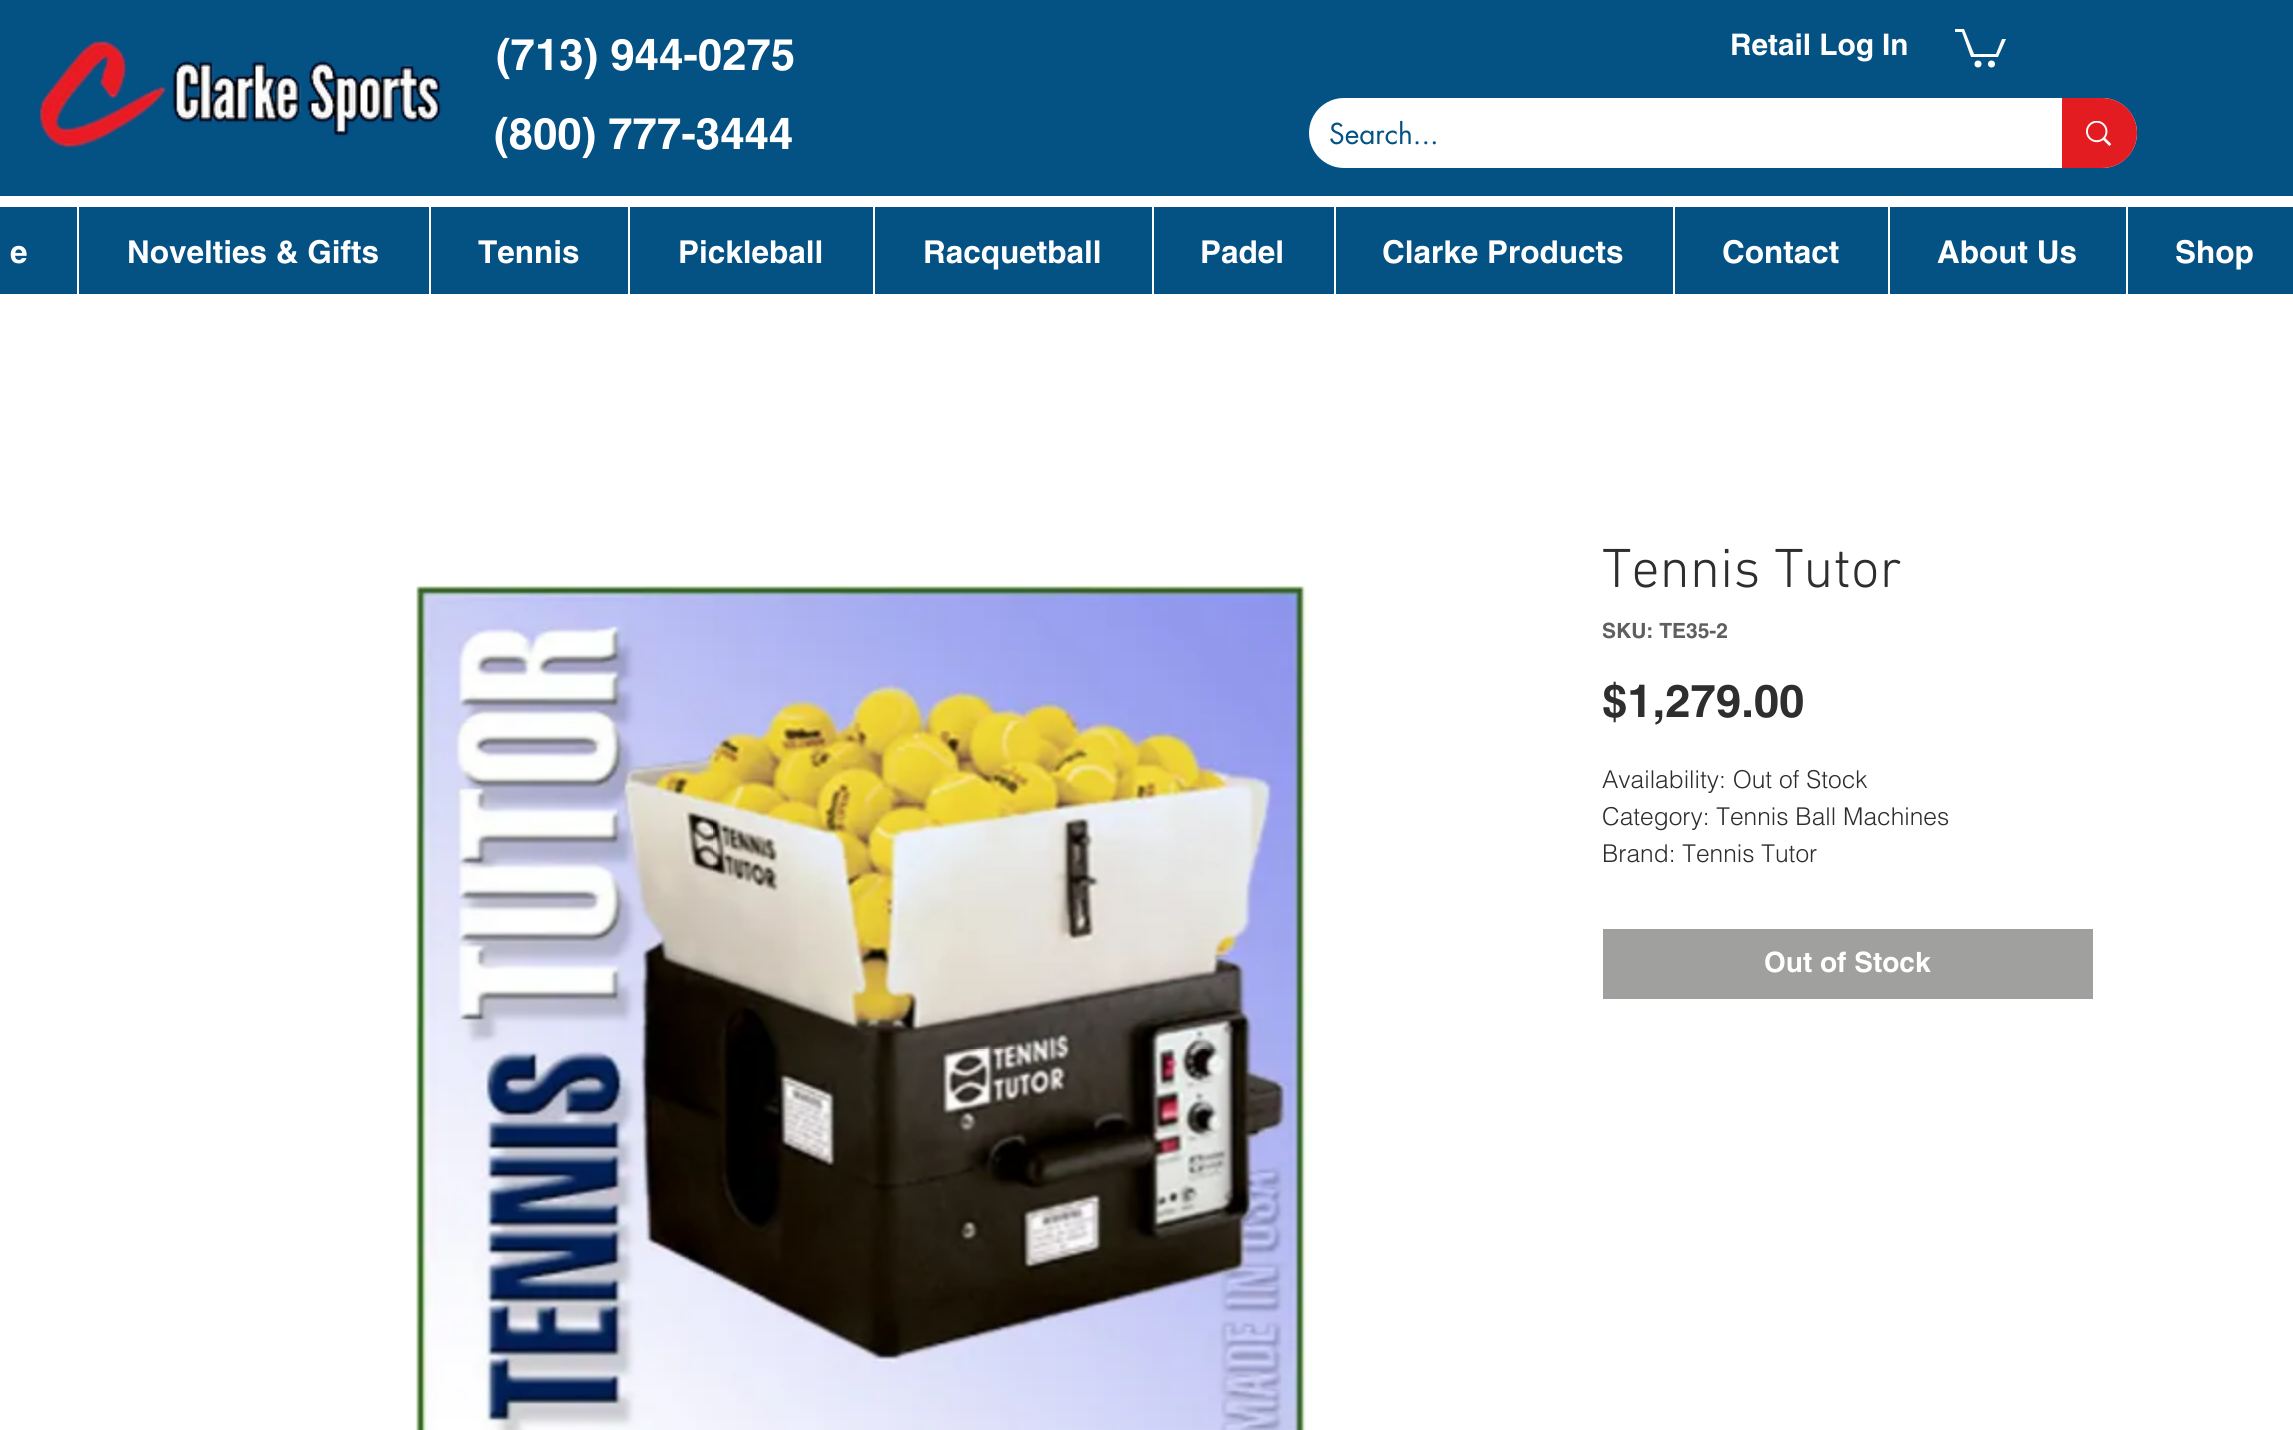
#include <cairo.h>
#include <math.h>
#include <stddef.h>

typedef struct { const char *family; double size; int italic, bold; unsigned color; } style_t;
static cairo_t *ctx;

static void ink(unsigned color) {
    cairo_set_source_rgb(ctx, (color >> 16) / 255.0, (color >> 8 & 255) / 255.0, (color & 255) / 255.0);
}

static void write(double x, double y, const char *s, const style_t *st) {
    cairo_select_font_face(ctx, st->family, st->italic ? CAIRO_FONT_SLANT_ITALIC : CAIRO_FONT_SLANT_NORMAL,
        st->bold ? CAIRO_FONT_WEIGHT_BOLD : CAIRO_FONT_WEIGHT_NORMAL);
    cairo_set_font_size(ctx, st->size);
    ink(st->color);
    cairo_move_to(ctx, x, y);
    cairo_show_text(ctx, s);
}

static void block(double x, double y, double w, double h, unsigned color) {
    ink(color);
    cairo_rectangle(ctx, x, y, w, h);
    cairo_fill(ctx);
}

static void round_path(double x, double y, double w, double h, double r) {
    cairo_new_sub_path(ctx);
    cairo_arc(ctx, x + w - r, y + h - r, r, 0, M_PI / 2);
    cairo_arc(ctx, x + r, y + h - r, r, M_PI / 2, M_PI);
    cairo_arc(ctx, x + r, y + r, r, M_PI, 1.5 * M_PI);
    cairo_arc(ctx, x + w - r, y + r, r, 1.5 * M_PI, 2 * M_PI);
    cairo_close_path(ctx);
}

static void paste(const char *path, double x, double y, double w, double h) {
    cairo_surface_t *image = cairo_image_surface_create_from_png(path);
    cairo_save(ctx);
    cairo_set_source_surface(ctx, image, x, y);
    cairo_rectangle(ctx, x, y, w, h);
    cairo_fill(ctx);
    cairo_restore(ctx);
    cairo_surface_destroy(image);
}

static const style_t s1 = {"helvetica", 43.75, 0, 1, 0xffffff};
static const style_t s2 = {"helvetica", 29.75, 0, 1, 0xffffff};
static const style_t s3 = {"futura", 28, 0, 0, 0x045184};
static const style_t s4 = {"helvetica", 31.5, 0, 1, 0xffffff};
static const style_t s5 = {"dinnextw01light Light", 56, 0, 0, 0x2f2e2e};
static const style_t s6 = {"helvetica", 21, 0, 1, 0x605e5e};
static const style_t s7 = {"helvetica", 45.5, 0, 1, 0x2f2e2e};
static const style_t s8 = {"helvetica Light", 24.5, 0, 0, 0x2f2e2e};
static const style_t s9 = {"helvetica", 28, 0, 1, 0xffffff};

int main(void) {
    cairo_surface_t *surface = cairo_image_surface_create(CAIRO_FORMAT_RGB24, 2293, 1430);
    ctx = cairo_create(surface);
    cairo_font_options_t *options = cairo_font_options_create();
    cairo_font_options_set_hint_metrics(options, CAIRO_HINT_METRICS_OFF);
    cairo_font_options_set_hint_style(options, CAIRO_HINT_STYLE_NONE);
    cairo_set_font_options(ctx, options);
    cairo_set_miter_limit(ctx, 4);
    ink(0xffffff);
    cairo_paint(ctx);
    block(0, 0, 2293, 196, 0x045184);
    paste("pic1.png", 39, 40, 403, 108);
    write(496, 70, "(713) 944-0275", &s1);
    write(1730, 55, "Retail Log In", &s2);
    cairo_new_path(ctx);
    cairo_move_to(ctx, 2006, 39);
    cairo_line_to(ctx, 1998, 57);
    cairo_line_to(ctx, 1971, 57);
    cairo_line_to(ctx, 1962, 32);
    cairo_line_to(ctx, 1955, 32);
    cairo_line_to(ctx, 1955, 29);
    cairo_line_to(ctx, 1964, 29);
    cairo_line_to(ctx, 1974, 54);
    cairo_line_to(ctx, 1996, 54);
    cairo_line_to(ctx, 2002, 39);
    cairo_fill(ctx);
    cairo_arc(ctx, 1991.5, 64, 3.5, 0, 2 * M_PI);
    cairo_fill(ctx);
    cairo_arc(ctx, 1978, 64, 3.5, 0, 2 * M_PI);
    cairo_fill(ctx);
    write(494, 149, "(800) 777-3444", &s1);
    round_path(1309, 98, 828, 70, 35);
    cairo_fill(ctx);
    write(1329, 144, "Search...", &s3);
    ink(0xe21c21);
    cairo_new_path(ctx);
    cairo_move_to(ctx, 2062, 98);
    cairo_line_to(ctx, 2102, 98);
    cairo_curve_to(ctx, 2121.5, 98, 2137, 113.5, 2137, 133);
    cairo_curve_to(ctx, 2137, 152.5, 2121.5, 168, 2102, 168);
    cairo_line_to(ctx, 2062, 168);
    cairo_close_path(ctx);
    cairo_fill(ctx);
    paste("pic2.png", 2086, 121, 26, 25);
    block(0, 207, 2293, 87, 0x045184);
    write(10, 263, "e", &s4);
    block(77, 207, 2, 89, 0xffffff);
    write(127, 263, "Novelties & Gifts", &s4);
    block(429, 207, 2, 89, 0xffffff);
    write(478, 263, "Tennis", &s4);
    block(628, 207, 2, 89, 0xffffff);
    write(678, 263, "Pickleball", &s4);
    block(873, 207, 2, 89, 0xffffff);
    write(923, 263, "Racquetball", &s4);
    block(1152, 207, 2, 89, 0xffffff);
    write(1200, 263, "Padel", &s4);
    block(1334, 207, 2, 89, 0xffffff);
    write(1382, 263, "Clarke Products", &s4);
    block(1673, 207, 2, 89, 0xffffff);
    write(1722, 263, "Contact", &s4);
    block(1888, 207, 2, 89, 0xffffff);
    write(1937, 263, "About Us", &s4);
    block(2126, 207, 2, 89, 0xffffff);
    write(2175, 263, "Shop", &s4);
    paste("pic3.png", 415, 582, 897, 848);
    write(1602, 587, "Tennis Tutor", &s5);
    write(1602, 638, "SKU: TE35-2", &s6);
    write(1602, 717, "$1,279.00", &s7);
    write(1602, 788, "Availability: Out of Stock", &s8);
    write(1602, 825, "Category: Tennis Ball Machines", &s8);
    write(1602, 862, "Brand: Tennis Tutor", &s8);
    block(1603, 929, 490, 70, 0xa0a09f);
    write(1764, 972, "Out of Stock", &s9);
    cairo_surface_write_to_png(surface, "screenshot.png");
    cairo_font_options_destroy(options);
    cairo_destroy(ctx);
    cairo_surface_destroy(surface);
    return 0;
}
